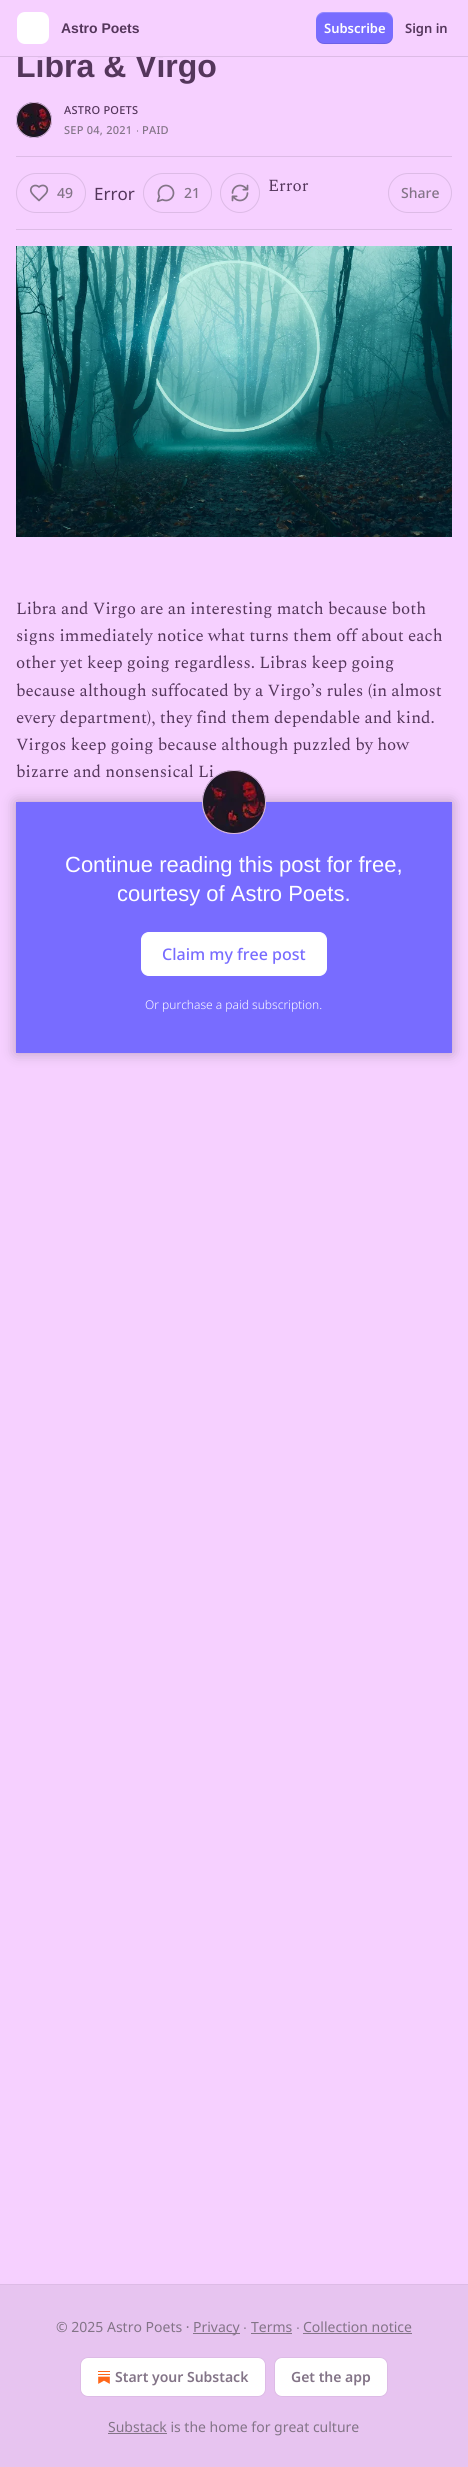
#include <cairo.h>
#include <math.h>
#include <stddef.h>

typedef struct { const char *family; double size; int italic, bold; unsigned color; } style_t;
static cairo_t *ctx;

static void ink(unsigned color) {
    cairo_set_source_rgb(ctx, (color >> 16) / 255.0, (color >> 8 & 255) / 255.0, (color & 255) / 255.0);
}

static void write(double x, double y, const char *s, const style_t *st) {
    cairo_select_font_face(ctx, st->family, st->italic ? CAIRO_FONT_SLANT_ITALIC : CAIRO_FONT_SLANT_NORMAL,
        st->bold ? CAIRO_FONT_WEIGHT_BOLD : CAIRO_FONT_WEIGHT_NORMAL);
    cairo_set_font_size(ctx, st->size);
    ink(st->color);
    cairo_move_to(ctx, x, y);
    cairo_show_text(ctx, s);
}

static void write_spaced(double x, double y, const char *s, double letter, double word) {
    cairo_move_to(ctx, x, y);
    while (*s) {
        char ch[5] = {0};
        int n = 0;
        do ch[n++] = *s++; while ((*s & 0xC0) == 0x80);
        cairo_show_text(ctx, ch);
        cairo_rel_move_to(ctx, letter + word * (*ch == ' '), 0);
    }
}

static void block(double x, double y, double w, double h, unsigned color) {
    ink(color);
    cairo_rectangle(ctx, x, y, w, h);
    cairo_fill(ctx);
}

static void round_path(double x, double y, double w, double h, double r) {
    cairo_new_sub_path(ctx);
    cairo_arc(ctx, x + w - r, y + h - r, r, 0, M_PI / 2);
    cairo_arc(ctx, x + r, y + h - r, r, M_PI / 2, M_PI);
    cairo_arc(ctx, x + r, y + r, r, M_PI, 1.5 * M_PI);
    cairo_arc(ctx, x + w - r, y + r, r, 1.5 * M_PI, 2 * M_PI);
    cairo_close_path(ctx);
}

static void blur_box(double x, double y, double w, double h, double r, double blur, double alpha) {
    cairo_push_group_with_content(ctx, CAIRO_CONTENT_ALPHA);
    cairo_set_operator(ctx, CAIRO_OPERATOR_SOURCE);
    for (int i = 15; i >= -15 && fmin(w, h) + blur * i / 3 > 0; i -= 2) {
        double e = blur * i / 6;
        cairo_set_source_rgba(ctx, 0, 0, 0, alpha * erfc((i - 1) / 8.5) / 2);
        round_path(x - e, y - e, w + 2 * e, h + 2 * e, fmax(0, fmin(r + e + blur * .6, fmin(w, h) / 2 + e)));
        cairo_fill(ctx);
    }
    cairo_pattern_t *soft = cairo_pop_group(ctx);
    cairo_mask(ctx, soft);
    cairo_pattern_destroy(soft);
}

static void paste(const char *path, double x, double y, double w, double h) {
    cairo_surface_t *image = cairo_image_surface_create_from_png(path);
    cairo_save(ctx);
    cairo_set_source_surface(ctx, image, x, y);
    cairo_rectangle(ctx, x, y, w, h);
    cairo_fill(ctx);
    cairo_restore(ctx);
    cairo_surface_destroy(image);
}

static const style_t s1 = {"Liberation Sans", 32, 0, 1, 0x54365b};
static const style_t s2 = {"Liberation Sans", 14, 0, 1, 0x54365b};
static const style_t s3 = {"Noto Sans SemiBold", 13, 0, 0, 0xffffff};
static const style_t s4 = {"Noto Sans SemiBold", 13, 0, 0, 0x54365b};
static const style_t s5 = {"Spectral", 17, 0, 0, 0x54365b};
static const style_t s6 = {"Noto Sans Medium", 14, 0, 0, 0x837487};
static const style_t s7 = {"Noto Sans", 17, 0, 0, 0x54365b};
static const style_t s8 = {"Liberation Sans", 22, 0, 0, 0xffffff};
static const style_t s9 = {"Noto Sans Medium", 16, 0, 0, 0x786cff};
static const style_t s10 = {"Noto Sans Light", 12, 0, 0, 0xffffff};
static const style_t s11 = {"Noto Sans", 14, 0, 0, 0x837487};
static const style_t s12 = {"Liberation Sans", 14, 0, 0, 0x837487};
static const style_t s13 = {"Noto Sans SemiBold", 14, 0, 0, 0x837487};

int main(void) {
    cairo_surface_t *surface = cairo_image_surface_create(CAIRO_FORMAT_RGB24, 468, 2467);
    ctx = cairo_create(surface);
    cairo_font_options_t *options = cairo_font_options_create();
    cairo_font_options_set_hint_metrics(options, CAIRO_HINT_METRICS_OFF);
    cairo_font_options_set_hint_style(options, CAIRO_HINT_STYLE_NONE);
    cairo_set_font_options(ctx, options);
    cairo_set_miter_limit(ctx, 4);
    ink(0xf6d0ff);
    cairo_paint(ctx);
    write(16, 77, "Libra & Virgo", &s1);
    block(18, 53, 146, 3, 0xf6d0ff);
    block(0, 56, 468, 1, 0xddbbe6);
    ink(0xffffff);
    round_path(17, 12, 32, 32, 8);
    cairo_fill(ctx);
    write(61, 33, "Astro Poets", &s2);
    ink(0x786cff);
    round_path(316, 12, 77, 32, 8);
    cairo_fill(ctx);
    cairo_set_source_rgba(ctx, 0, 0, 0, 0.1);
    cairo_new_path(ctx);
    cairo_move_to(ctx, 316, 35);
    cairo_curve_to(ctx, 316, 46, 326, 44, 334, 44);
    cairo_line_to(ctx, 375, 44);
    cairo_curve_to(ctx, 383, 44, 393, 46, 393, 35);
    cairo_curve_to(ctx, 393, 39, 389, 43, 385, 43);
    cairo_line_to(ctx, 324, 43);
    cairo_curve_to(ctx, 320, 43, 316, 39, 316, 35);
    cairo_close_path(ctx);
    cairo_fill(ctx);
    cairo_set_source_rgba(ctx, 1, 1, 1, 0.2);
    cairo_new_path(ctx);
    cairo_move_to(ctx, 324, 13);
    cairo_line_to(ctx, 385, 13);
    cairo_curve_to(ctx, 389, 13, 393, 17, 393, 21);
    cairo_curve_to(ctx, 393, 10, 383, 12, 375, 12);
    cairo_line_to(ctx, 334, 12);
    cairo_curve_to(ctx, 326, 12, 316, 10, 316, 21);
    cairo_curve_to(ctx, 316, 17, 320, 13, 324, 13);
    cairo_close_path(ctx);
    cairo_fill(ctx);
    write(324, 33, "Subscribe", &s3);
    write(405, 33, "Sign in", &s4);
    cairo_new_path(ctx);
    cairo_arc(ctx, 34, 120, 17.5, 0, 2 * M_PI);
    ink(0xddbbe6);
    cairo_set_line_width(ctx, 1);
    cairo_stroke(ctx);
    paste("pic1.png", 16, 102, 36, 36);
    cairo_arc(ctx, 34, 120, 17.5, 0, 2 * M_PI);
    cairo_stroke(ctx);
    cairo_select_font_face(ctx, "Noto Sans Medium", CAIRO_FONT_SLANT_NORMAL, CAIRO_FONT_WEIGHT_NORMAL);
    cairo_set_font_size(ctx, 11);
    ink(0x54365b);
    write_spaced(64, 114, "ASTRO POETS", 0.25, 0);
    ink(0x837487);
    write_spaced(64, 134, "SEP 04, 2021", 0.25, 0);
    cairo_select_font_face(ctx, "Liberation Sans", CAIRO_FONT_SLANT_NORMAL, CAIRO_FONT_WEIGHT_NORMAL);
    write_spaced(136, 134, "∙", 0.25, 0);
    cairo_select_font_face(ctx, "Noto Sans Medium", CAIRO_FONT_SLANT_NORMAL, CAIRO_FONT_WEIGHT_NORMAL);
    write_spaced(142, 134, "PAID", 0.25, 0);
    block(16, 156, 436, 1, 0xddbbe6);
    block(16, 229, 436, 1, 0xddbbe6);
    cairo_new_path(ctx);
    cairo_arc(ctx, 240, 193, 19.5, 0, 2 * M_PI);
    cairo_stroke(ctx);
    paste("pic2.png", 231, 184, 18, 18);
    write(268, 191, "Error", &s5);
    round_path(16.5, 173.5, 69, 39, 19.5);
    ink(0xddbbe6);
    cairo_stroke(ctx);
    cairo_new_path(ctx);
    cairo_move_to(ctx, 45, 194.5);
    cairo_curve_to(ctx, 51, 188.5, 44, 182.5, 39, 187);
    cairo_curve_to(ctx, 35.5, 183.5, 29.5, 186.5, 31, 191.5);
    cairo_curve_to(ctx, 32, 194.5, 37, 198.5, 39, 200.5);
    cairo_close_path(ctx);
    ink(0x837487);
    cairo_set_line_width(ctx, 1.7);
    cairo_set_line_cap(ctx, CAIRO_LINE_CAP_ROUND);
    cairo_set_line_join(ctx, CAIRO_LINE_JOIN_ROUND);
    cairo_stroke(ctx);
    write(57, 198, "49", &s6);
    write(94, 200, "Error", &s7);
    round_path(143.5, 173.5, 68, 39, 19.5);
    ink(0xddbbe6);
    cairo_set_line_width(ctx, 1);
    cairo_set_line_cap(ctx, CAIRO_LINE_CAP_BUTT);
    cairo_set_line_join(ctx, CAIRO_LINE_JOIN_MITER);
    cairo_stroke(ctx);
    paste("pic3.png", 156, 184, 19, 19);
    write(184, 198, "21", &s6);
    round_path(388.5, 173.5, 63, 39, 19.5);
    ink(0xddbbe6);
    cairo_stroke(ctx);
    write(401, 198, "Share", &s6);
    paste("pic4.png", 16, 246, 436, 291);
    write(16, 614, "Libra and Virgo are an interesting match because both", &s5);
    write(16, 641, "signs immediately notice what turns them off about each", &s5);
    write(16, 668, "other yet keep going regardless. Libras keep going", &s5);
    write(16, 696, "because although suffocated by a Virgo’s rules (in almost", &s5);
    write(16, 723, "every department), they find them dependable and kind.", &s5);
    write(16, 750, "Virgos keep going because although puzzled by how", &s5);
    write(16, 777, "bizarre and nonsensical Li", &s5);
    block(16, 802, 436, 251, 0x786cff);
    ink(0xffffff);
    round_path(141.5, 932.5, 185, 43, 7.5);
    cairo_fill_preserve(ctx);
    cairo_stroke(ctx);
    cairo_save(ctx);
    cairo_set_fill_rule(ctx, CAIRO_FILL_RULE_EVEN_ODD);
    cairo_new_path(ctx);
    cairo_move_to(ctx, 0, 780);
    cairo_line_to(ctx, 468, 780);
    cairo_line_to(ctx, 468, 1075);
    cairo_line_to(ctx, 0, 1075);
    cairo_close_path(ctx);
    cairo_move_to(ctx, 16, 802);
    cairo_line_to(ctx, 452, 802);
    cairo_line_to(ctx, 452, 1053);
    cairo_line_to(ctx, 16, 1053);
    cairo_close_path(ctx);
    cairo_clip(ctx);
    ink(0x000000);
    blur_box(16, 802, 436, 251, 0, 7, 0.25);
    cairo_restore(ctx);
    cairo_arc(ctx, 234, 802, 31.5, 0, 2 * M_PI);
    ink(0xddbbe6);
    cairo_stroke(ctx);
    paste("pic5.png", 202, 770, 64, 64);
    cairo_arc(ctx, 234, 802, 31.5, 0, 2 * M_PI);
    cairo_stroke(ctx);
    write(65, 872, "Continue reading this post for free,", &s8);
    write(117, 901, "courtesy of Astro Poets.", &s8);
    write(162, 960, "Claim my free post", &s9);
    write(145, 1009, "Or purchase a paid subscription.", &s10);
    block(0, 2285, 468, 182, 0xe7c4f0);
    block(0, 2284, 468, 1, 0xddbbe6);
    write(56, 2332, "© 2025 Astro Poets ·", &s11);
    block(193, 2333, 47, 1, 0x837487);
    write(193, 2332, "Privacy", &s11);
    write(243, 2332, "∙", &s12);
    write(251, 2332, "Terms", &s11);
    block(251, 2333, 41, 1, 0x837487);
    write(296, 2332, "∙", &s12);
    write(303, 2332, "Collection notice", &s11);
    block(303, 2333, 109, 1, 0x837487);
    ink(0xffffff);
    round_path(80.5, 2357.5, 185, 39, 7.5);
    cairo_fill_preserve(ctx);
    ink(0xddbbe6);
    cairo_stroke(ctx);
    paste("pic6.png", 98, 2371, 12, 13);
    write(115, 2382, "Start your Substack", &s13);
    ink(0xffffff);
    round_path(274.5, 2357.5, 113, 39, 7.5);
    cairo_fill_preserve(ctx);
    ink(0xddbbe6);
    cairo_stroke(ctx);
    write(291, 2382, "Get the app", &s13);
    block(108, 2433, 59, 1, 0x837487);
    write(108, 2432, "Substack is the home for great culture", &s11);
    cairo_surface_write_to_png(surface, "screenshot.png");
    cairo_font_options_destroy(options);
    cairo_destroy(ctx);
    cairo_surface_destroy(surface);
    return 0;
}
